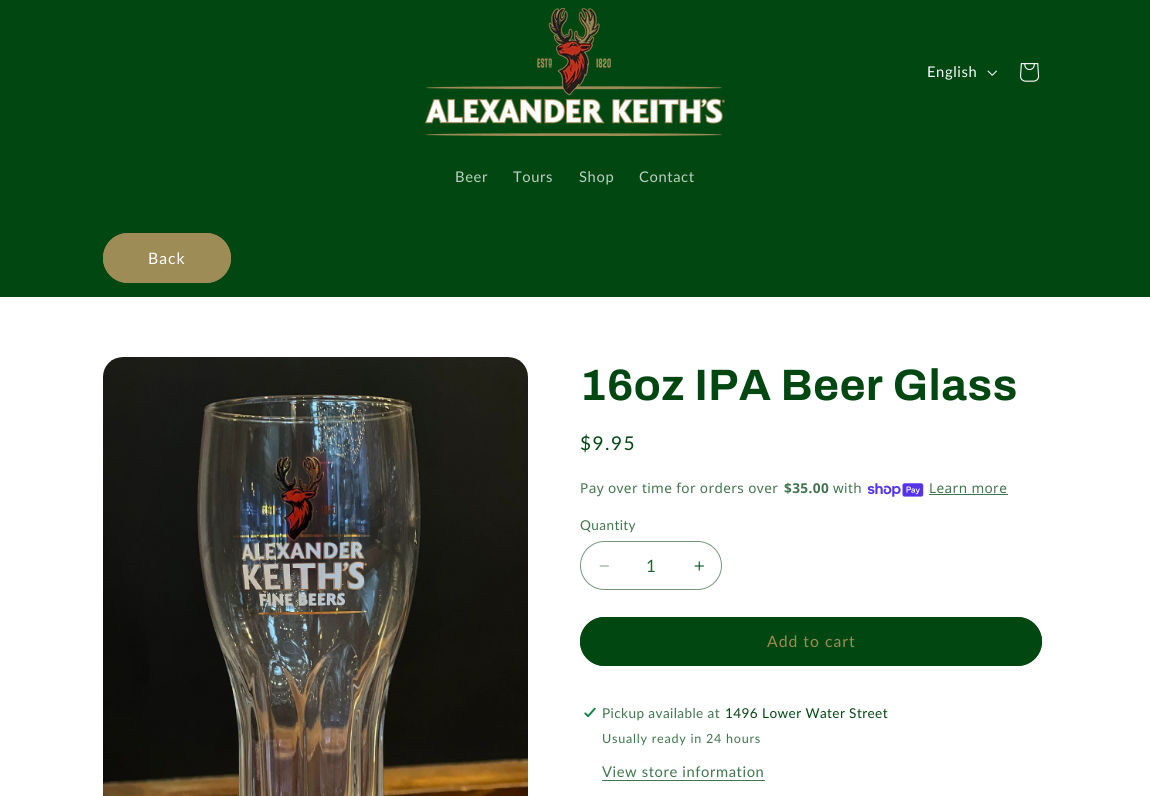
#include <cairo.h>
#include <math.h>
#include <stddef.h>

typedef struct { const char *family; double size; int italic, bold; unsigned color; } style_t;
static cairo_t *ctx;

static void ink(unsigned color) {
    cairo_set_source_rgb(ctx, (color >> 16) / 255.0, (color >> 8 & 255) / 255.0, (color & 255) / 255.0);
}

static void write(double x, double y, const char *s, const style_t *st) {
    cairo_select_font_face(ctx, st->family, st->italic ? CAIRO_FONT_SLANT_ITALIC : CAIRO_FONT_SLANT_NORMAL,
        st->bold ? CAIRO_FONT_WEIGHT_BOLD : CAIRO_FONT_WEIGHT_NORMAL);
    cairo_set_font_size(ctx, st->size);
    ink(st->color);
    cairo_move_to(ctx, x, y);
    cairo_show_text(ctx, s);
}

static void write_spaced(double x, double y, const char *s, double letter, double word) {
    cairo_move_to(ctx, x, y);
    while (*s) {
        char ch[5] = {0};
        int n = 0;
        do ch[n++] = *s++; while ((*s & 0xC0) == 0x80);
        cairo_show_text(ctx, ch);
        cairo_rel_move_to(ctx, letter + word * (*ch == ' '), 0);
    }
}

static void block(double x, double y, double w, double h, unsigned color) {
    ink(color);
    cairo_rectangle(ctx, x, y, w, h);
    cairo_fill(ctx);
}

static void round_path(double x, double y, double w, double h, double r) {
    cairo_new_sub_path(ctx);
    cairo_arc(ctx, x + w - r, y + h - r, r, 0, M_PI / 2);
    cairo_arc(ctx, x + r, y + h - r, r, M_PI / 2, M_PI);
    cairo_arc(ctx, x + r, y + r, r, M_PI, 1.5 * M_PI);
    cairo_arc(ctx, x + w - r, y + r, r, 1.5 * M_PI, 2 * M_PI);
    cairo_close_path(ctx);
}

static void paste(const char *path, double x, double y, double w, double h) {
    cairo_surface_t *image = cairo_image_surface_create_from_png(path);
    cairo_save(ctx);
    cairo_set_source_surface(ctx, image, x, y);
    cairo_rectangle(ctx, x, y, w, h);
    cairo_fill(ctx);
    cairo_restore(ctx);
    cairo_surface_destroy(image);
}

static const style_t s1 = {"Lato", 17, 0, 0, 0x266336};

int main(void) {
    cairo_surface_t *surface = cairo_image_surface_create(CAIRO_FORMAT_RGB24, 1150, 796);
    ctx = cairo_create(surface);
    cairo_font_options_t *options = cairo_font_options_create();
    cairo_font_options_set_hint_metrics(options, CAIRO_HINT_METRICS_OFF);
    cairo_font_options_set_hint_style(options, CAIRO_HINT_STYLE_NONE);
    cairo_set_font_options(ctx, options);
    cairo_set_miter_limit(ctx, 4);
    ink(0x004712);
    cairo_paint(ctx);
    paste("pic1.png", 425, 8, 300, 128);
    cairo_select_font_face(ctx, "Lato", CAIRO_FONT_SLANT_NORMAL, CAIRO_FONT_WEIGHT_NORMAL);
    cairo_set_font_size(ctx, 14.75);
    ink(0xffffff);
    write_spaced(927, 77, "English", 0.6, 0);
    paste("pic2.png", 987, 70, 10, 6);
    paste("pic3.png", 1020, 63, 20, 19);
    ink(0xbfd1c4);
    write_spaced(455, 182, "Beer", 0.6, 0);
    write_spaced(513, 182, "Tours", 0.6, 0);
    write_spaced(579, 182, "Shop", 0.6, 0);
    write_spaced(639, 182, "Contact", 0.6, 0);
    ink(0x9e8c57);
    round_path(103, 233, 128, 50, 25);
    cairo_fill(ctx);
    round_path(103.5, 233.5, 127, 49, 24.5);
    cairo_set_line_width(ctx, 1);
    cairo_stroke(ctx);
    cairo_set_font_size(ctx, 15.75);
    ink(0xffffff);
    write_spaced(148, 264, "Back", 1, 0);
    block(0, 297, 1150, 499, 0xffffff);
    paste("pic4.png", 103, 357, 425, 439);
    cairo_select_font_face(ctx, "Archivo", CAIRO_FONT_SLANT_NORMAL, CAIRO_FONT_WEIGHT_BOLD);
    cairo_set_font_size(ctx, 44);
    ink(0x004712);
    write_spaced(580, 400, "16oz IPA Beer Glass", 0.7, 0);
    cairo_select_font_face(ctx, "Lato", CAIRO_FONT_SLANT_NORMAL, CAIRO_FONT_WEIGHT_NORMAL);
    cairo_set_font_size(ctx, 19);
    write_spaced(580, 450, "$9.95", 1.5, 0);
    cairo_select_font_face(ctx, "Noto Sans", CAIRO_FONT_SLANT_NORMAL, CAIRO_FONT_WEIGHT_NORMAL);
    cairo_set_font_size(ctx, 13.6);
    ink(0x40754d);
    write_spaced(580, 493, "Pay over time for orders over", 0.4, 0);
    cairo_select_font_face(ctx, "Noto Sans", CAIRO_FONT_SLANT_NORMAL, CAIRO_FONT_WEIGHT_BOLD);
    write_spaced(784, 493, "$35.00", 0.4, 0);
    cairo_select_font_face(ctx, "Noto Sans", CAIRO_FONT_SLANT_NORMAL, CAIRO_FONT_WEIGHT_NORMAL);
    write_spaced(833, 493, "with", 0.4, 0);
    paste("pic5.png", 867, 483, 57, 14);
    write_spaced(929, 493, "Learn more", 0.4, 0);
    block(929, 494, 79, 1, 0x40754d);
    cairo_select_font_face(ctx, "Lato", CAIRO_FONT_SLANT_NORMAL, CAIRO_FONT_WEIGHT_NORMAL);
    write_spaced(580, 530, "Quantity", 0.4, 0);
    paste("pic6.png", 599, 565, 10, 2);
    paste("pic7.png", 694, 561, 10, 10);
    round_path(580.5, 541.5, 141, 48, 24);
    ink(0x739a7d);
    cairo_stroke(ctx);
    write(646, 572, "1", &s1);
    ink(0x004712);
    round_path(580, 617, 462, 49, 24.5);
    cairo_fill(ctx);
    round_path(580.5, 617.5, 461, 48, 24);
    cairo_stroke(ctx);
    cairo_set_font_size(ctx, 15.75);
    ink(0x9e8c57);
    write_spaced(767, 647, "Add to cart", 1, 0);
    paste("pic8.png", 583, 707, 14, 11);
    cairo_set_font_size(ctx, 13.6);
    ink(0x40754d);
    write_spaced(602, 718, "Pickup available at", 0.4, 0);
    ink(0x004712);
    write_spaced(725, 718, "1496 Lower Water Street", 0.4, 0);
    cairo_set_font_size(ctx, 12.6);
    ink(0x40754d);
    write_spaced(602, 743, "Usually ready in 24 hours", 0.75, 0);
    cairo_set_font_size(ctx, 14.75);
    write_spaced(602, 777, "View store information", 0.6, 0);
    block(602, 780, 163, 1, 0x40754d);
    cairo_surface_write_to_png(surface, "screenshot.png");
    cairo_font_options_destroy(options);
    cairo_destroy(ctx);
    cairo_surface_destroy(surface);
    return 0;
}
